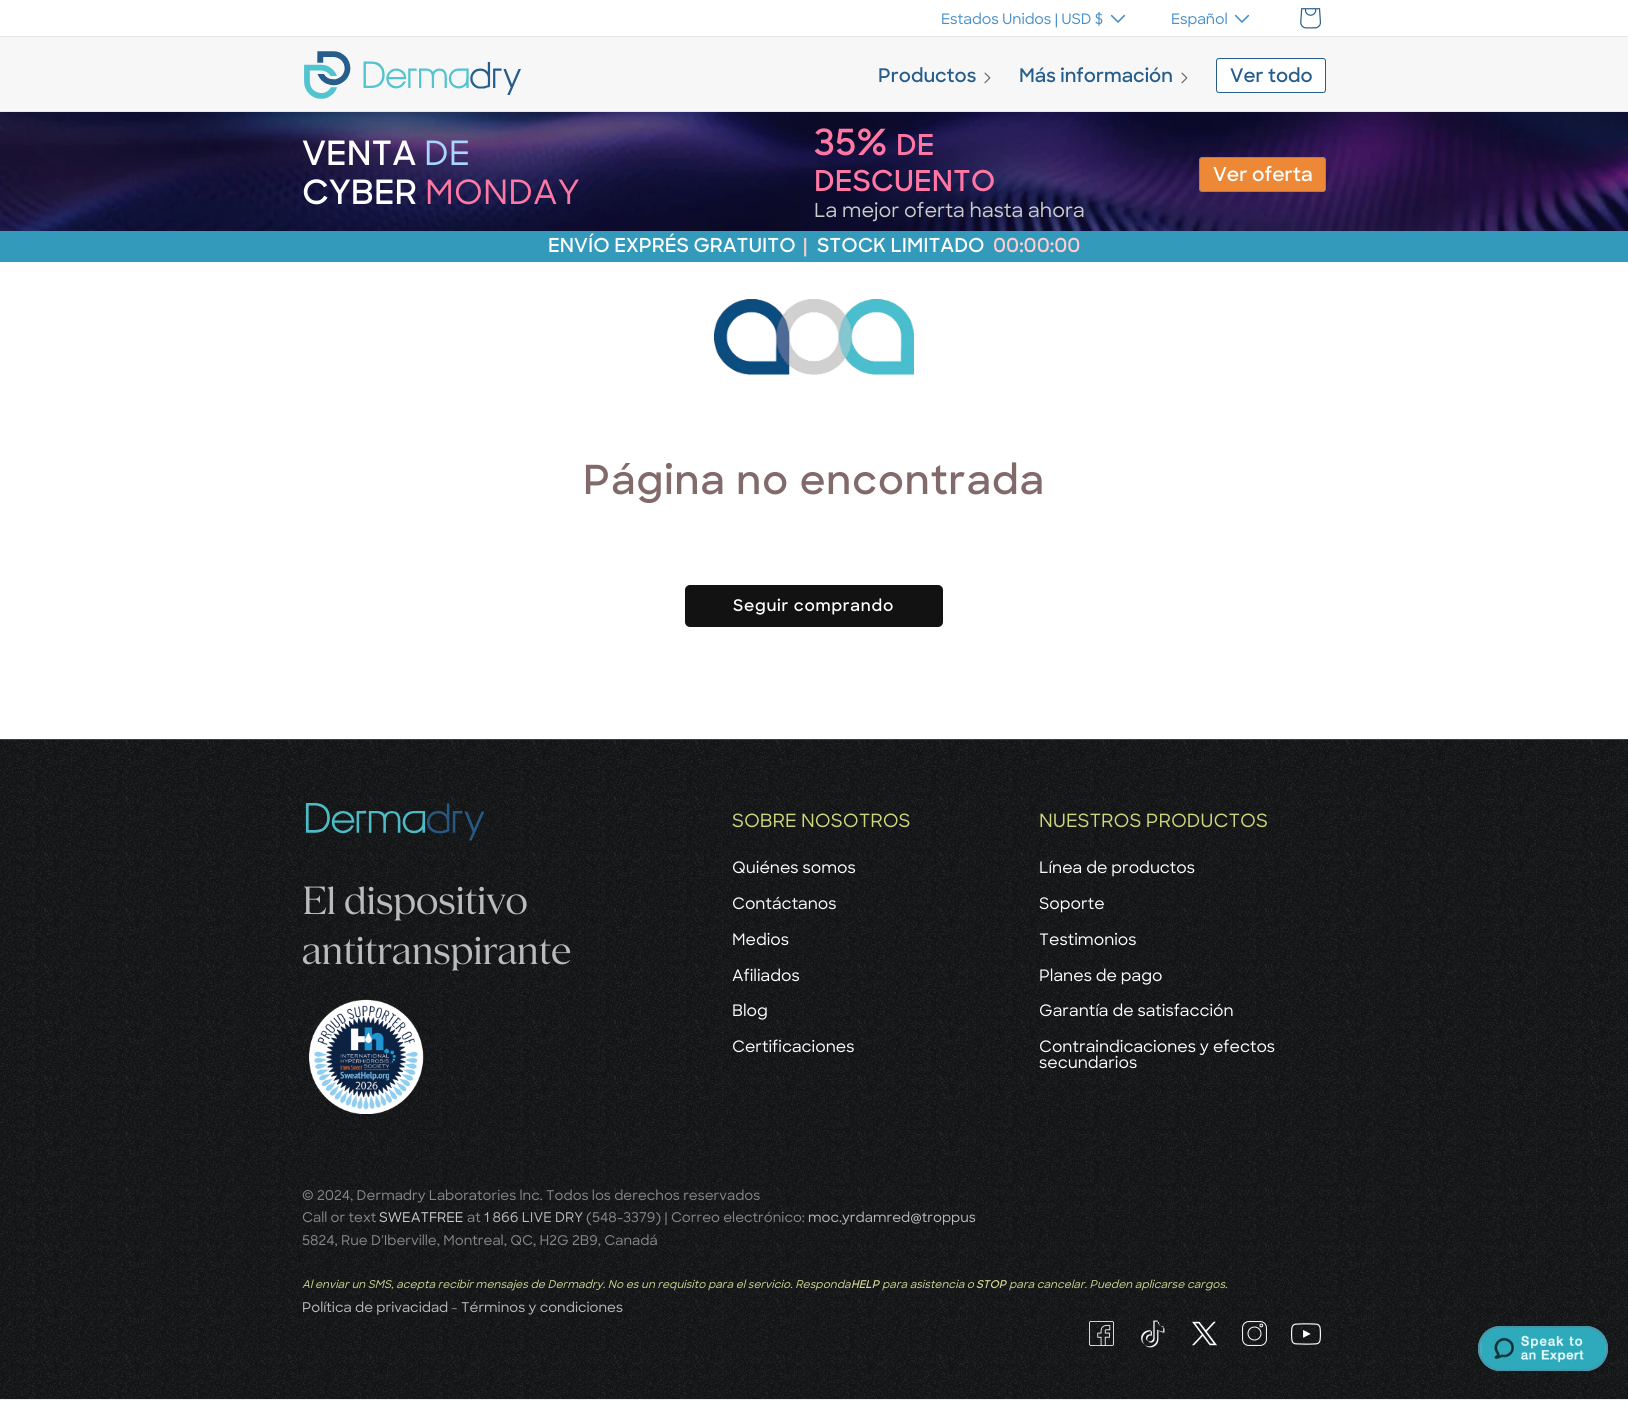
#include <cairo.h>
#include <math.h>
#include <stddef.h>

typedef struct { const char *family; double size; int italic, bold; unsigned color; } style_t;
static cairo_t *ctx;

static void ink(unsigned color) {
    cairo_set_source_rgb(ctx, (color >> 16) / 255.0, (color >> 8 & 255) / 255.0, (color & 255) / 255.0);
}

static void write(double x, double y, const char *s, const style_t *st) {
    cairo_select_font_face(ctx, st->family, st->italic ? CAIRO_FONT_SLANT_ITALIC : CAIRO_FONT_SLANT_NORMAL,
        st->bold ? CAIRO_FONT_WEIGHT_BOLD : CAIRO_FONT_WEIGHT_NORMAL);
    cairo_set_font_size(ctx, st->size);
    ink(st->color);
    cairo_move_to(ctx, x, y);
    cairo_show_text(ctx, s);
}

static void write_spaced(double x, double y, const char *s, double letter, double word) {
    cairo_move_to(ctx, x, y);
    while (*s) {
        char ch[5] = {0};
        int n = 0;
        do ch[n++] = *s++; while ((*s & 0xC0) == 0x80);
        cairo_show_text(ctx, ch);
        cairo_rel_move_to(ctx, letter + word * (*ch == ' '), 0);
    }
}

static void block(double x, double y, double w, double h, unsigned color) {
    ink(color);
    cairo_rectangle(ctx, x, y, w, h);
    cairo_fill(ctx);
}

static void round_path(double x, double y, double w, double h, double r) {
    cairo_new_sub_path(ctx);
    cairo_arc(ctx, x + w - r, y + h - r, r, 0, M_PI / 2);
    cairo_arc(ctx, x + r, y + h - r, r, M_PI / 2, M_PI);
    cairo_arc(ctx, x + r, y + r, r, M_PI, 1.5 * M_PI);
    cairo_arc(ctx, x + w - r, y + r, r, 1.5 * M_PI, 2 * M_PI);
    cairo_close_path(ctx);
}

static void paste(const char *path, double x, double y, double w, double h) {
    cairo_surface_t *image = cairo_image_surface_create_from_png(path);
    cairo_save(ctx);
    cairo_set_source_surface(ctx, image, x, y);
    cairo_rectangle(ctx, x, y, w, h);
    cairo_fill(ctx);
    cairo_restore(ctx);
    cairo_surface_destroy(image);
}

static const style_t s1 = {"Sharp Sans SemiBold", 18.75, 0, 0, 0x275d8b};
static const style_t s2 = {"Sharp Sans SemiBold", 33.5, 0, 0, 0xffffff};
static const style_t s3 = {"Sharp Sans Medium", 33.5, 0, 0, 0xaad5ff};
static const style_t s4 = {"Sharp Sans Medium", 33.5, 0, 0, 0xff77a2};
static const style_t s5 = {"Sharp Sans SemiBold", 36, 0, 0, 0xff77a2};
static const style_t s6 = {"Sharp Sans SemiBold", 28.75, 0, 0, 0xff77a2};
static const style_t s7 = {"Sharp Sans Medium", 19.25, 0, 0, 0xcccccc};
static const style_t s8 = {"Sharp Sans SemiBold", 19.25, 0, 0, 0xffffff};
static const style_t s9 = {"Sharp Sans SemiBold", 19.25, 0, 0, 0xffcdcd};
static const style_t s10 = {"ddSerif", 37.75, 0, 0, 0xbbbbbb};
static const style_t s11 = {"Sharp Sans Medium", 18.25, 0, 0, 0xcfd87c};
static const style_t s12 = {"Sharp Sans Medium", 15.8, 0, 0, 0xffffff};
static const style_t s13 = {"Sharp Sans Medium", 13.45, 0, 0, 0x888888};
static const style_t s14 = {"Sharp Sans Medium", 13.45, 0, 0, 0xcccccc};
static const style_t s15 = {"Sharp Sans Medium", 13.45, 0, 0, 0xbbbbbb};
static const style_t s16 = {"Sharp Sans Medium", 10.77, 1, 0, 0xd1d894};
static const style_t s17 = {"Sharp Sans SemiBold", 10.77, 1, 0, 0xd1d894};

int main(void) {
    cairo_surface_t *surface = cairo_image_surface_create(CAIRO_FORMAT_RGB24, 1628, 1421);
    ctx = cairo_create(surface);
    cairo_font_options_t *options = cairo_font_options_create();
    cairo_font_options_set_hint_metrics(options, CAIRO_HINT_METRICS_OFF);
    cairo_font_options_set_hint_style(options, CAIRO_HINT_STYLE_NONE);
    cairo_set_font_options(ctx, options);
    cairo_set_miter_limit(ctx, 4);
    ink(0xffffff);
    cairo_paint(ctx);
    block(0, 111, 1628, 1, 0xe8e8e8);
    cairo_select_font_face(ctx, "Sharp Sans Medium", CAIRO_FONT_SLANT_NORMAL, CAIRO_FONT_WEIGHT_NORMAL);
    cairo_set_font_size(ctx, 14.4);
    ink(0x488ec9);
    write_spaced(941, 24, "Estados Unidos | USD $", -0.1, 0);
    paste("pic1.png", 1110, 14, 16, 9);
    write_spaced(1171, 24, "Español", -0.1, 0);
    paste("pic1.png", 1234, 14, 16, 9);
    paste("pic2.png", 1300, 8, 21, 21);
    block(0, 37, 1628, 74, 0xf7f7f7);
    block(0, 36, 1628, 1, 0xe8e8e8);
    paste("pic3.png", 304, 51, 217, 48);
    write(878, 82, "Productos", &s1);
    paste("pic4.png", 984, 72, 7, 12);
    write(1019, 82, "Más información", &s1);
    paste("pic4.png", 1181, 72, 7, 12);
    ink(0xffffff);
    round_path(1216.5, 58.5, 109, 34, 2.5);
    cairo_fill_preserve(ctx);
    ink(0x275d8b);
    cairo_set_line_width(ctx, 1);
    cairo_stroke(ctx);
    write(1230, 82, "Ver todo", &s1);
    paste("pic5.png", 0, 112, 1628, 119);
    write(302, 165, "VENTA", &s2);
    write(424, 165, "DE", &s3);
    write(302, 204, "CYBER", &s2);
    write(425, 204, "MONDAY", &s4);
    write(814, 155, "35%", &s5);
    write(896, 155, "DE", &s6);
    write(814, 191, "DESCUENTO", &s6);
    write(814, 217, "La mejor oferta hasta ahora", &s7);
    ink(0xec8836);
    round_path(1199.5, 157.5, 126, 34, 2.5);
    cairo_fill_preserve(ctx);
    ink(0x888888);
    cairo_stroke(ctx);
    write(1213, 181, "Ver oferta", &s8);
    block(0, 231, 1628, 31, 0x339abc);
    write(548, 252, "ENVÍO EXPRÉS GRATUITO", &s8);
    write(803, 252, "|", &s9);
    write(817, 252, "STOCK LIMITADO", &s8);
    write(993, 252, "00:00:00", &s9);
    paste("pic6.png", 714, 299, 200, 76);
    cairo_set_font_size(ctx, 40);
    ink(0x826a6a);
    write_spaced(583, 494, "Página no encontrada", 1, 0);
    ink(0x121212);
    round_path(685, 585, 258, 42, 5);
    cairo_fill(ctx);
    cairo_set_font_size(ctx, 16);
    ink(0xffffff);
    write_spaced(733, 611, "Seguir comprando", 0.75, 0);
    block(0, 740, 1628, 659, 0x131415);
    paste("pic7.png", 0, 740, 1628, 659);
    block(0, 739, 1628, 1, 0x1a486f);
    paste("pic8.png", 305, 803, 180, 38);
    write(302, 914, "El dispositivo", &s10);
    write(302, 964, "antitranspirante", &s10);
    paste("pic9.png", 308, 999, 116, 115);
    write(732, 827, "SOBRE NOSOTROS", &s11);
    write(732, 873, "Quiénes somos", &s12);
    write(732, 909, "Contáctanos", &s12);
    write(732, 945, "Medios", &s12);
    write(732, 981, "Afiliados", &s12);
    write(732, 1016, "Blog", &s12);
    write(732, 1052, "Certificaciones", &s12);
    write(1039, 827, "NUESTROS PRODUCTOS", &s11);
    write(1039, 873, "Línea de productos", &s12);
    write(1039, 909, "Soporte", &s12);
    write(1039, 945, "Testimonios", &s12);
    write(1039, 981, "Planes de pago", &s12);
    write(1039, 1016, "Garantía de satisfacción", &s12);
    write(1039, 1052, "Contraindicaciones y efectos", &s12);
    write(1039, 1068, "secundarios", &s12);
    write(302, 1200, "© 2024, Dermadry Laboratories lnc. Todos los derechos reservados", &s13);
    write(302, 1222, "Call or text", &s13);
    write(379, 1222, "SWEATFREE", &s14);
    write(467, 1222, "at", &s13);
    write(484, 1222, "1 866 LIVE DRY", &s15);
    write(586, 1222, "(548-3379) | Correo electrónico:", &s13);
    write(808, 1222, "moc.yrdamred@troppus", &s15);
    write(302, 1245, "5824, Rue D'Iberville, Montreal, QC, H2G 2B9, Canadá", &s13);
    write(302, 1288, "Al enviar un SMS, acepta recibir mensajes de Dermadry. No es un requisito para el servicio. Responda", &s16);
    write(851, 1288, "HELP", &s17);
    write(882, 1288, "para asistencia o", &s16);
    write(976, 1288, "STOP", &s17);
    write(1009, 1288, "para cancelar. Pueden aplicarse cargos.", &s16);
    write(302, 1312, "Política de privacidad", &s15);
    write(451, 1312, "-", &s13);
    write(461, 1312, "Términos y condiciones", &s15);
    paste("pic10.png", 1089, 1321, 25, 25);
    paste("pic11.png", 1141, 1320, 24, 28);
    paste("pic12.png", 1192, 1321, 25, 25);
    paste("pic13.png", 1242, 1321, 25, 25);
    paste("pic14.png", 1291, 1323, 30, 22);
    block(0, 1399, 1628, 1, 0xececec);
    ink(0x57a8b9);
    round_path(1478, 1326, 130, 45, 22.5);
    cairo_fill(ctx);
    paste("pic15.png", 1482, 1328, 123, 41);
    round_path(1479, 1327, 128, 43, 21.5);
    ink(0x4797a9);
    cairo_set_line_width(ctx, 2);
    cairo_stroke(ctx);
    cairo_surface_write_to_png(surface, "screenshot.png");
    cairo_font_options_destroy(options);
    cairo_destroy(ctx);
    cairo_surface_destroy(surface);
    return 0;
}
